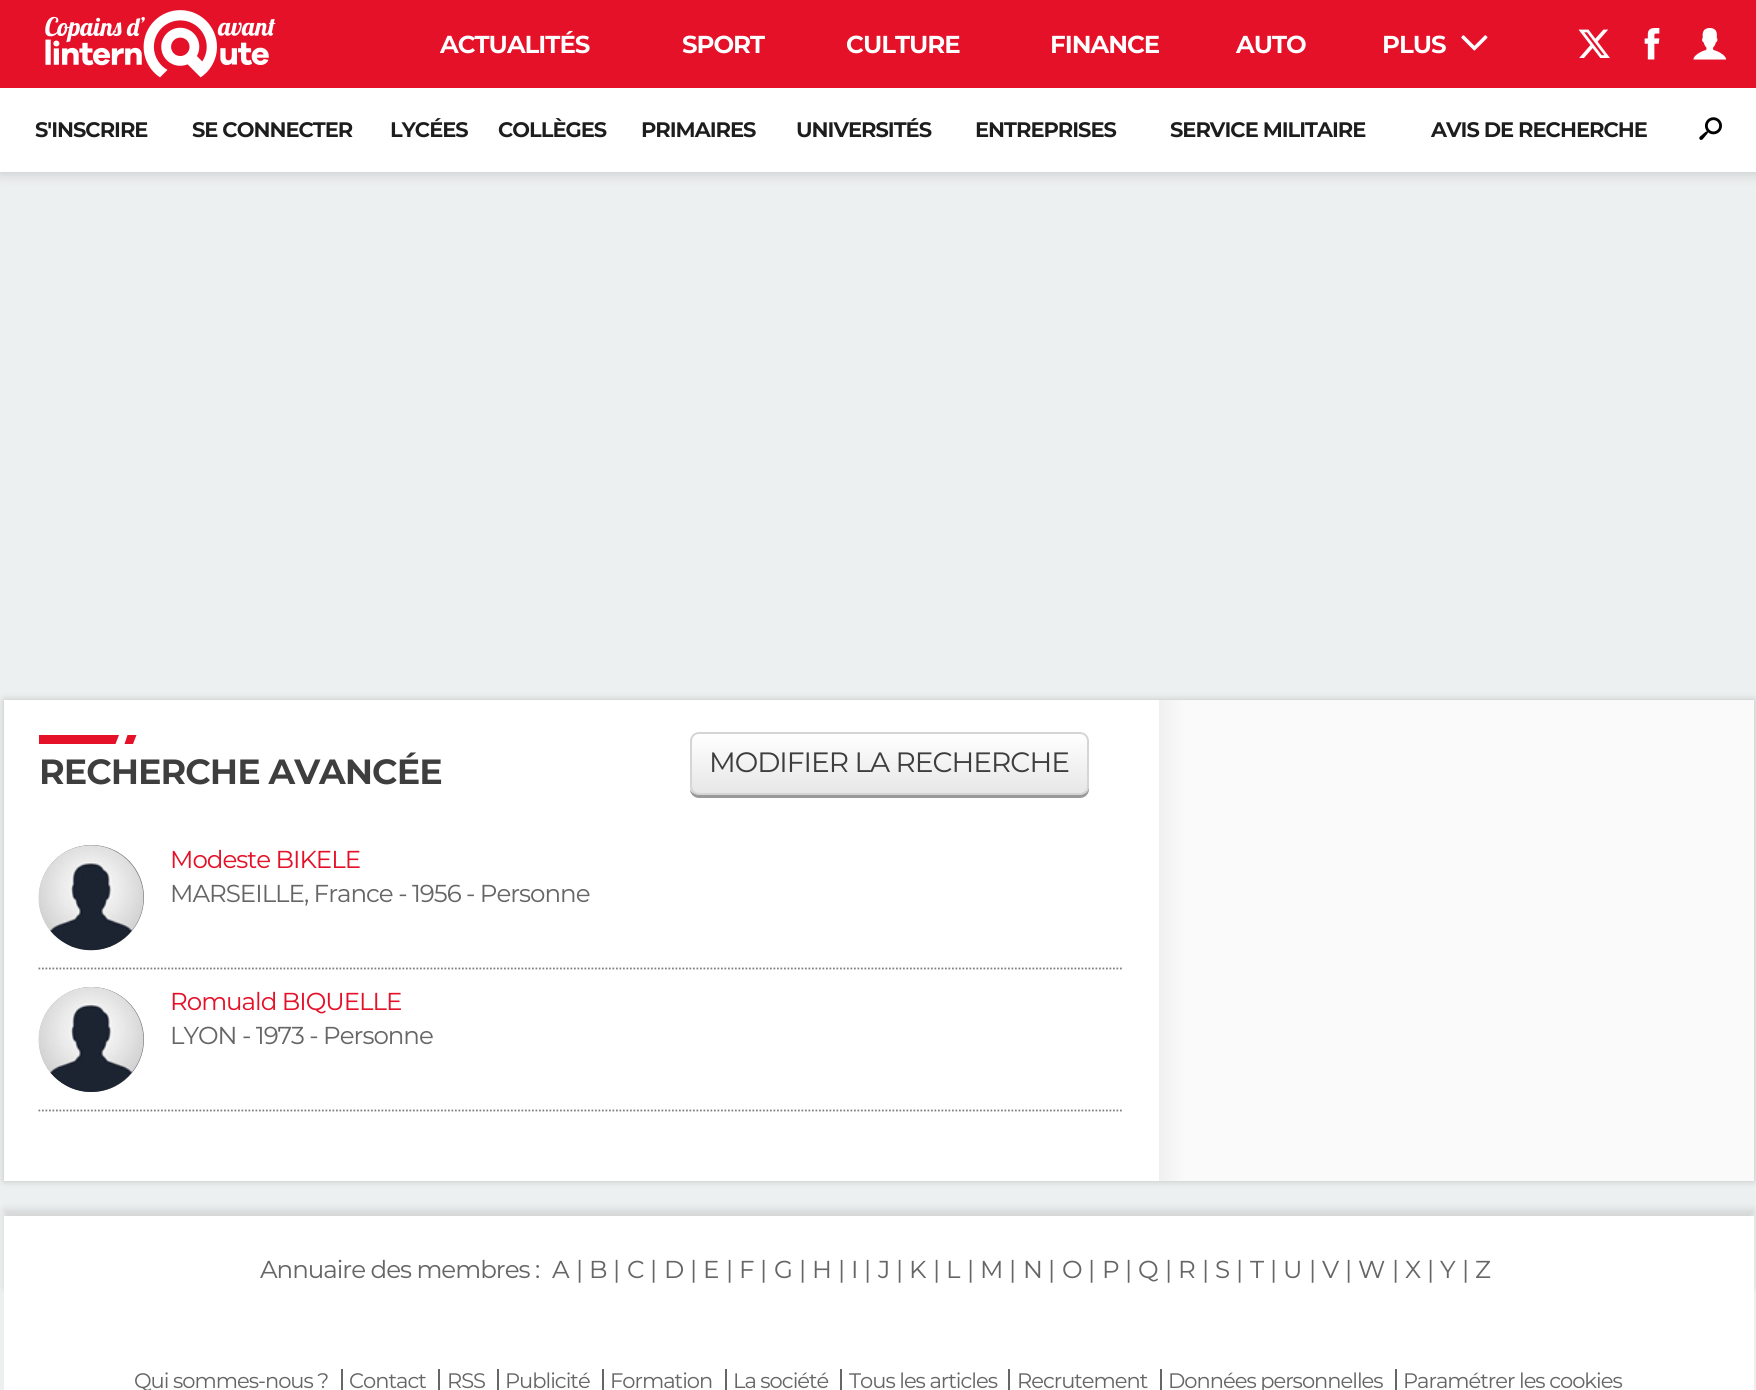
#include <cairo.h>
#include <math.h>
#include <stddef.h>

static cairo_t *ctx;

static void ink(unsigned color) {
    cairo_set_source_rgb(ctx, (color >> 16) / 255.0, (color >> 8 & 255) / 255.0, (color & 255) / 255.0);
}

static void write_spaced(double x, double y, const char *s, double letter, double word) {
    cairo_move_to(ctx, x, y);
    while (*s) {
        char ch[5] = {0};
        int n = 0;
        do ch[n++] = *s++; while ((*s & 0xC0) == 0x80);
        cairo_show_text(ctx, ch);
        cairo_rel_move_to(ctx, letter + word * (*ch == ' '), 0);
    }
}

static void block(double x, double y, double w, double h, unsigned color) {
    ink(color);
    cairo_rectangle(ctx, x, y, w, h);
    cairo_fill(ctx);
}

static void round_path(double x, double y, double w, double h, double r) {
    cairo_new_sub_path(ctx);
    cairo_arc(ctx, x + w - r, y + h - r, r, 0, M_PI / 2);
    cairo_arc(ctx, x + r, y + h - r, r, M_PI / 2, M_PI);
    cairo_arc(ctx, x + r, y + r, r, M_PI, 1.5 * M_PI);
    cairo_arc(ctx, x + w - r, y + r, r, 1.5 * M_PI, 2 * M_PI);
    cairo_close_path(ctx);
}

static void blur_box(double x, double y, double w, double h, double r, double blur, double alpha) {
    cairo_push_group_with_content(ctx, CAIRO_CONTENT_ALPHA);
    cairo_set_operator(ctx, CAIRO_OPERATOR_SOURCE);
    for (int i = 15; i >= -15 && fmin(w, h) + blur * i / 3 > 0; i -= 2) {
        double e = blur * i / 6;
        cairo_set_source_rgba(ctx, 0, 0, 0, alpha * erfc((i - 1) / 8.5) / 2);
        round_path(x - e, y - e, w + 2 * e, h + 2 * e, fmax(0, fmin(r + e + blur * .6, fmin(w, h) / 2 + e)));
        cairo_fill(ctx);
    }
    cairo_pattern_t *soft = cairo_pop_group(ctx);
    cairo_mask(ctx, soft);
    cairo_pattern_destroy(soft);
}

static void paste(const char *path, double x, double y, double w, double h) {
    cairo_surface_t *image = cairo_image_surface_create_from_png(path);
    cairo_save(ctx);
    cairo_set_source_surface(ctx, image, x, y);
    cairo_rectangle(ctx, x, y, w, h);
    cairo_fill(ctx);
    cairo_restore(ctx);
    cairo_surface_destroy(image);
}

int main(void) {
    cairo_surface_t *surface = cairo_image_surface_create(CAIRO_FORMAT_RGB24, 1756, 1390);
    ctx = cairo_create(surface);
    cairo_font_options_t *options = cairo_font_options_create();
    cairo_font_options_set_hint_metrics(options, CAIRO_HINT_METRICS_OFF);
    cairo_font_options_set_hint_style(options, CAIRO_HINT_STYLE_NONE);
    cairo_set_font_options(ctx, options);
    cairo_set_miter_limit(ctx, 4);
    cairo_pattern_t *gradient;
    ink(0xedf0f0);
    cairo_paint(ctx);
    ink(0x000000);
    blur_box(0, 0, 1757, 172, 0, 7, 0.2);
    block(0, 0, 1756, 88, 0xe41129);
    paste("pic1.png", 45, 10, 231, 68);
    cairo_select_font_face(ctx, "Montserrat", CAIRO_FONT_SLANT_NORMAL, CAIRO_FONT_WEIGHT_BOLD);
    cairo_set_font_size(ctx, 24.5);
    ink(0xffffff);
    write_spaced(440, 53, "ACTUALITÉS", -1, 0);
    write_spaced(682, 53, "SPORT", -1, 0);
    write_spaced(846, 53, "CULTURE", -1, 0);
    write_spaced(1050, 53, "FINANCE", -1, 0);
    write_spaced(1236, 53, "AUTO", -1, 0);
    write_spaced(1382, 53, "PLUS", -1, 0);
    paste("pic2.png", 1461, 35, 27, 16);
    paste("pic3.png", 1578, 29, 32, 29);
    paste("pic4.png", 1644, 28, 16, 32);
    paste("pic5.png", 1693, 28, 34, 32);
    block(0, 88, 1756, 84, 0xffffff);
    cairo_set_font_size(ctx, 21);
    ink(0x1d1d1d);
    write_spaced(35, 137, "S'INSCRIRE", -1, 0);
    write_spaced(192, 137, "SE CONNECTER", -1, 0);
    write_spaced(390, 137, "LYCÉES", -1, 0);
    write_spaced(498, 137, "COLLÈGES", -1, 0);
    write_spaced(641, 137, "PRIMAIRES", -1, 0);
    write_spaced(796, 137, "UNIVERSITÉS", -1, 0);
    write_spaced(975, 137, "ENTREPRISES", -1, 0);
    write_spaced(1170, 137, "SERVICE MILITAIRE", -1, 0);
    write_spaced(1431, 137, "AVIS DE RECHERCHE", -1, 0);
    paste("pic6.png", 1699, 117, 23, 23);
    block(1185, 805, 569, 376, 0xfafafa);
    cairo_save(ctx);
    cairo_set_fill_rule(ctx, CAIRO_FILL_RULE_EVEN_ODD);
    cairo_new_path(ctx);
    cairo_move_to(ctx, 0, 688);
    cairo_line_to(ctx, 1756, 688);
    cairo_line_to(ctx, 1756, 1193);
    cairo_line_to(ctx, 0, 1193);
    cairo_close_path(ctx);
    cairo_move_to(ctx, 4, 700);
    cairo_line_to(ctx, 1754, 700);
    cairo_line_to(ctx, 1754, 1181);
    cairo_line_to(ctx, 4, 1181);
    cairo_close_path(ctx);
    cairo_clip(ctx);
    ink(0x000000);
    blur_box(4, 700, 1750, 481, 0, 3.5, 0.2);
    cairo_restore(ctx);
    block(4, 700, 1155, 481, 0xffffff);
    block(39, 735, 80, 9, 0xe41129);
    ink(0xffffff);
    cairo_new_path(ctx);
    cairo_move_to(ctx, 119, 735);
    cairo_line_to(ctx, 136.5, 735);
    cairo_line_to(ctx, 133, 744);
    cairo_line_to(ctx, 115.5, 744);
    cairo_close_path(ctx);
    cairo_fill(ctx);
    ink(0xe41129);
    cairo_new_path(ctx);
    cairo_move_to(ctx, 127.5, 735);
    cairo_line_to(ctx, 136.5, 735);
    cairo_line_to(ctx, 133, 744);
    cairo_line_to(ctx, 124.5, 744);
    cairo_close_path(ctx);
    cairo_fill(ctx);
    cairo_set_font_size(ctx, 35);
    ink(0x3f3e3e);
    write_spaced(39, 784, "RECHERCHE AVANCÉE", -1, 0);
    ink(0x999999);
    cairo_new_path(ctx);
    cairo_move_to(ctx, 690, 789);
    cairo_curve_to(ctx, 690, 794, 694, 798, 699, 798);
    cairo_line_to(ctx, 1080, 798);
    cairo_curve_to(ctx, 1085, 798, 1089, 794, 1089, 789);
    cairo_line_to(ctx, 1089, 744);
    cairo_line_to(ctx, 1088, 741);
    cairo_line_to(ctx, 1088, 786);
    cairo_curve_to(ctx, 1088, 791, 1085, 794, 1080, 794);
    cairo_line_to(ctx, 698, 794);
    cairo_curve_to(ctx, 694, 794, 691, 792, 690, 789);
    cairo_close_path(ctx);
    cairo_fill(ctx);
    cairo_save(ctx);
    round_path(690, 732, 399, 63, 9);
    cairo_clip(ctx);
    gradient = cairo_pattern_create_linear(889, 733, 889, 793);
    cairo_pattern_add_color_stop_rgba(gradient, 0, 1, 1, 1, 1);
    cairo_pattern_add_color_stop_rgba(gradient, 1, 0.906, 0.906, 0.906, 1);
    cairo_set_source(ctx, gradient);
    cairo_pattern_destroy(gradient);
    cairo_rectangle(ctx, 690, 733, 399, 60);
    cairo_fill(ctx);
    cairo_restore(ctx);
    round_path(691, 733, 397, 61, 8);
    ink(0xd5d5d5);
    cairo_stroke(ctx);
    cairo_select_font_face(ctx, "Montserrat", CAIRO_FONT_SLANT_NORMAL, CAIRO_FONT_WEIGHT_NORMAL);
    cairo_set_font_size(ctx, 28);
    ink(0x3f3e3e);
    write_spaced(709, 772, "MODIFIER LA RECHERCHE", -1, 0);
    cairo_new_path(ctx);
    cairo_move_to(ctx, 38.5, 968.5);
    cairo_line_to(ctx, 1123.5, 968.5);
    ink(0x7f7f7f);
    cairo_set_line_width(ctx, 1.8);
    cairo_set_dash(ctx, (double[]){1.75, 1.75}, 2, 0);
    cairo_stroke(ctx);
    ink(0x666666);
    cairo_arc(ctx, 91.5, 897.5, 52.5, 0, 2 * M_PI);
    cairo_fill(ctx);
    paste("pic7.png", 38, 845, 106, 106);
    cairo_set_font_size(ctx, 24.5);
    ink(0xe41129);
    write_spaced(170, 868, "Modeste BIKELE", -1, 0);
    ink(0x666666);
    write_spaced(170, 902, "MARSEILLE, France - 1956 - Personne", -1, 0);
    cairo_new_path(ctx);
    cairo_move_to(ctx, 38.5, 1110.5);
    cairo_line_to(ctx, 1123.5, 1110.5);
    ink(0x7f7f7f);
    cairo_stroke(ctx);
    ink(0x666666);
    cairo_arc(ctx, 91.5, 1039.5, 52.5, 0, 2 * M_PI);
    cairo_fill(ctx);
    paste("pic8.png", 38, 987, 106, 105);
    ink(0xe41129);
    write_spaced(170, 1010, "Romuald BIQUELLE", -1, 0);
    ink(0x666666);
    write_spaced(170, 1044, "LYON - 1973 - Personne", -1, 0);
    block(1185, 700, 569, 105, 0xfafafa);
    gradient = cairo_pattern_create_linear(1159, 941, 1185, 941);
    cairo_pattern_add_color_stop_rgba(gradient, 0, 0.941, 0.941, 0.941, 1);
    cairo_pattern_add_color_stop_rgba(gradient, 1, 0.98, 0.98, 0.98, 1);
    cairo_set_source(ctx, gradient);
    cairo_pattern_destroy(gradient);
    cairo_rectangle(ctx, 1159, 700, 26, 481);
    cairo_fill(ctx);
    block(4, 1295, 1750, 95, 0xffffff);
    ink(0x000000);
    blur_box(4, 1209, 1750, 79, 0, 3.5, 0.1);
    block(4, 1216, 1750, 79, 0xffffff);
    ink(0x666666);
    write_spaced(260, 1278, "Annuaire des membres :", -1, 0);
    write_spaced(552, 1278, "A", -1, 0);
    write_spaced(576, 1278, "|", -1, 0);
    write_spaced(589, 1278, "B", -1, 0);
    write_spaced(613, 1278, "|", -1, 0);
    write_spaced(627, 1278, "C", -1, 0);
    write_spaced(650, 1278, "|", -1, 0);
    write_spaced(664, 1278, "D", -1, 0);
    write_spaced(690, 1278, "|", -1, 0);
    write_spaced(703, 1278, "E", -1, 0);
    write_spaced(726, 1278, "|", -1, 0);
    write_spaced(739, 1278, "F", -1, 0);
    write_spaced(760, 1278, "|", -1, 0);
    write_spaced(774, 1278, "G", -1, 0);
    write_spaced(799, 1278, "|", -1, 0);
    write_spaced(812, 1278, "H", -1, 0);
    write_spaced(838, 1278, "|", -1, 0);
    write_spaced(851, 1278, "I", -1, 0);
    write_spaced(864, 1278, "|", -1, 0);
    write_spaced(878, 1278, "J", -1, 0);
    write_spaced(896, 1278, "|", -1, 0);
    write_spaced(909, 1278, "K", -1, 0);
    write_spaced(933, 1278, "|", -1, 0);
    write_spaced(946, 1278, "L", -1, 0);
    write_spaced(967, 1278, "|", -1, 0);
    write_spaced(980, 1278, "M", -1, 0);
    write_spaced(1009, 1278, "|", -1, 0);
    write_spaced(1023, 1278, "N", -1, 0);
    write_spaced(1048, 1278, "|", -1, 0);
    write_spaced(1062, 1278, "O", -1, 0);
    write_spaced(1088, 1278, "|", -1, 0);
    write_spaced(1102, 1278, "P", -1, 0);
    write_spaced(1125, 1278, "|", -1, 0);
    write_spaced(1138, 1278, "Q", -1, 0);
    write_spaced(1165, 1278, "|", -1, 0);
    write_spaced(1178, 1278, "R", -1, 0);
    write_spaced(1202, 1278, "|", -1, 0);
    write_spaced(1215, 1278, "S", -1, 0);
    write_spaced(1236, 1278, "|", -1, 0);
    write_spaced(1250, 1278, "T", -1, 0);
    write_spaced(1270, 1278, "|", -1, 0);
    write_spaced(1283, 1278, "U", -1, 0);
    write_spaced(1309, 1278, "|", -1, 0);
    write_spaced(1322, 1278, "V", -1, 0);
    write_spaced(1345, 1278, "|", -1, 0);
    write_spaced(1358, 1278, "W", -1, 0);
    write_spaced(1392, 1278, "|", -1, 0);
    write_spaced(1405, 1278, "X", -1, 0);
    write_spaced(1427, 1278, "|", -1, 0);
    write_spaced(1440, 1278, "Y", -1, 0);
    write_spaced(1462, 1278, "|", -1, 0);
    write_spaced(1475, 1278, "Z", -1, 0);
    cairo_set_font_size(ctx, 21);
    write_spaced(134, 1388, "Qui sommes-nous ?", -1, 0);
    block(341, 1369, 2, 21, 0x666666);
    write_spaced(349, 1388, "Contact", -1, 0);
    block(438, 1369, 2, 21, 0x666666);
    write_spaced(447, 1388, "RSS", -1, 0);
    block(497, 1369, 2, 21, 0x666666);
    write_spaced(505, 1388, "Publicité", -1, 0);
    block(602, 1369, 2, 21, 0x666666);
    write_spaced(610, 1388, "Formation", -1, 0);
    block(725, 1369, 2, 21, 0x666666);
    write_spaced(733, 1388, "La société", -1, 0);
    block(840, 1369, 2, 21, 0x666666);
    write_spaced(849, 1388, "Tous les articles", -1, 0);
    block(1008, 1369, 2, 21, 0x666666);
    write_spaced(1017, 1388, "Recrutement", -1, 0);
    block(1160, 1369, 2, 21, 0x666666);
    write_spaced(1168, 1388, "Données personnelles", -1, 0);
    block(1395, 1369, 2, 21, 0x666666);
    write_spaced(1403, 1388, "Paramétrer les cookies", -1, 0);
    cairo_surface_write_to_png(surface, "screenshot.png");
    cairo_font_options_destroy(options);
    cairo_destroy(ctx);
    cairo_surface_destroy(surface);
    return 0;
}
